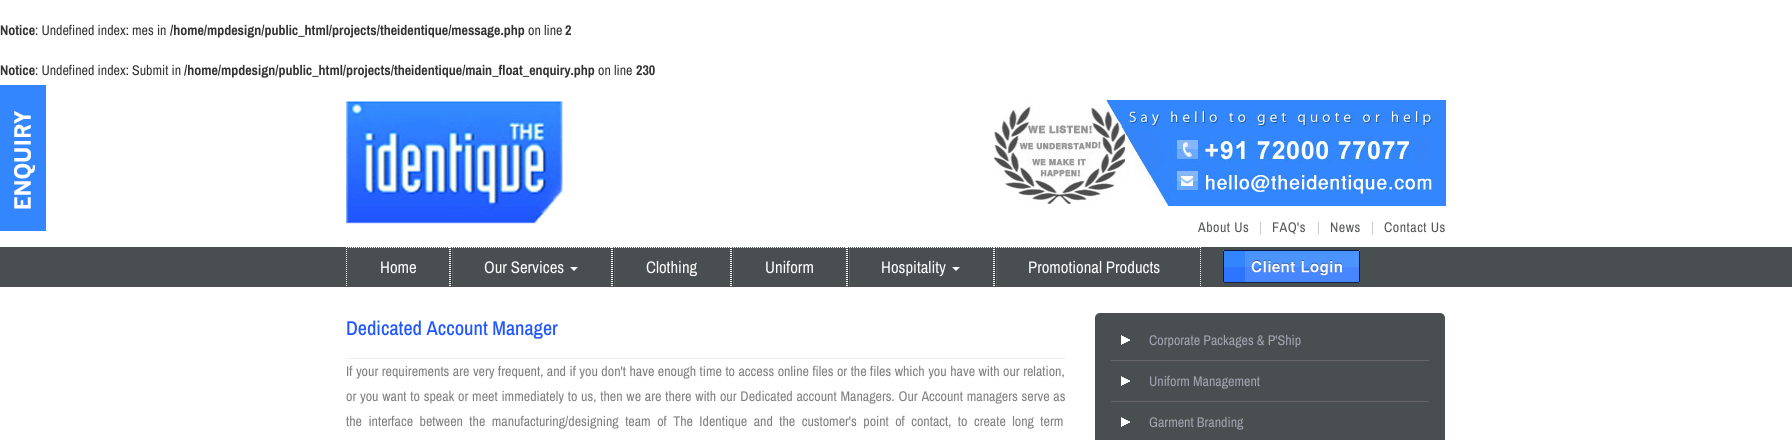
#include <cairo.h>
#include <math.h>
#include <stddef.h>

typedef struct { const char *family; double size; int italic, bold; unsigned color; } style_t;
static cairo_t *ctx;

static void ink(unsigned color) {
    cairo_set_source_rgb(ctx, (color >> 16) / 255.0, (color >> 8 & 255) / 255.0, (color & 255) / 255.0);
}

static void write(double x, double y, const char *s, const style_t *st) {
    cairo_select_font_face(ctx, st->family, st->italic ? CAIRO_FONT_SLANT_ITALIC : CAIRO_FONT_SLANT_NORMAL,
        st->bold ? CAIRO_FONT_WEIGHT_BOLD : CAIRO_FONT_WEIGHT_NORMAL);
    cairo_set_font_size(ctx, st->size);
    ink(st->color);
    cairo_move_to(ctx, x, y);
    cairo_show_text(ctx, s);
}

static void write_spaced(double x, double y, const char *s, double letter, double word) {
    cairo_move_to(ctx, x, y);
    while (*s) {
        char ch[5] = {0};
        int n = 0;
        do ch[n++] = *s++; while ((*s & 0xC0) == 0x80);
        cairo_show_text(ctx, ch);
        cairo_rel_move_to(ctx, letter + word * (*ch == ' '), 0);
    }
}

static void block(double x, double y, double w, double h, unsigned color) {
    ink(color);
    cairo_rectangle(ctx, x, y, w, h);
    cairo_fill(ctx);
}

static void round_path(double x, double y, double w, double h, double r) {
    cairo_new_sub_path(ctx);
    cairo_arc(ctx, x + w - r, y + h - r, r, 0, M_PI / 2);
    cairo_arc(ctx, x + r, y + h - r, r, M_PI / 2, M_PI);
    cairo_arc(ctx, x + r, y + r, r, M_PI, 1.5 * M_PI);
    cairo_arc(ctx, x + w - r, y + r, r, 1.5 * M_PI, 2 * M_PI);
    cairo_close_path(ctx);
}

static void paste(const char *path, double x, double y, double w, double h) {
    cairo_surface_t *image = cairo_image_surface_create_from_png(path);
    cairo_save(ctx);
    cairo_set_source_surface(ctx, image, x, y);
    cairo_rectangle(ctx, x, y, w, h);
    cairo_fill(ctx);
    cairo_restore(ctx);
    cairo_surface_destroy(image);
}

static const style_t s1 = {"Archivo Narrow", 14, 0, 1, 0x333333};
static const style_t s2 = {"Archivo Narrow", 14, 0, 0, 0x333333};
static const style_t s3 = {"Archivo Narrow", 16.75, 0, 0, 0xfcfcfc};
static const style_t s4 = {"Archivo Narrow Medium", 20, 0, 0, 0x2157ff};
static const style_t s5 = {"Archivo Narrow", 14, 0, 0, 0xa1a4b1};

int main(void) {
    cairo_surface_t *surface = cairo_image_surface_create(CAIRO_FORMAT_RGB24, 1792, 440);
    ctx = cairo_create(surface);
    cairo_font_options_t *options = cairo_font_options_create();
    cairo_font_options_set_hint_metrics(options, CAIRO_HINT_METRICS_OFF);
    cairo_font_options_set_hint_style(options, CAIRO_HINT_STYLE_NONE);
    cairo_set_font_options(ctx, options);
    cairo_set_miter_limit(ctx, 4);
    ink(0xffffff);
    cairo_paint(ctx);
    write(0, 35, "Notice", &s1);
    write(35, 35, ": Undefined index: mes in", &s2);
    write(170, 35, "/home/mpdesign/public_html/projects/theidentique/message.php", &s1);
    write(528, 35, "on line", &s2);
    write(565, 35, "2", &s1);
    write(0, 75, "Notice", &s1);
    write(35, 75, ": Undefined index: Submit in", &s2);
    write(184, 75, "/home/mpdesign/public_html/projects/theidentique/main_float_enquiry.php", &s1);
    write(598, 75, "on line", &s2);
    write(636, 75, "230", &s1);
    paste("pic1.png", 0, 85, 46, 146);
    paste("pic2.png", 346, 101, 217, 123);
    paste("pic3.png", 994, 100, 452, 106);
    cairo_select_font_face(ctx, "Archivo Narrow", CAIRO_FONT_SLANT_NORMAL, CAIRO_FONT_WEIGHT_NORMAL);
    ink(0x555756);
    write_spaced(1198, 232, "About Us", 0.5, 0);
    ink(0xcccccc);
    write_spaced(1259, 232, "|", 0.5, 0);
    ink(0x555756);
    write_spaced(1272, 232, "FAQ's", 0.5, 0);
    ink(0xcccccc);
    write_spaced(1317, 232, "|", 0.5, 0);
    ink(0x555756);
    write_spaced(1330, 232, "News", 0.5, 0);
    ink(0xcccccc);
    write_spaced(1371, 232, "|", 0.5, 0);
    ink(0x555756);
    write_spaced(1384, 232, "Contact Us", 0.5, 0);
    block(0, 247, 1792, 40, 0x494e50);
    cairo_new_path(ctx);
    cairo_move_to(ctx, 346, 247.5);
    cairo_line_to(ctx, 450, 247.5);
    ink(0xffffff);
    cairo_set_line_width(ctx, 1);
    cairo_set_dash(ctx, (double[]){1, 1}, 2, 0);
    cairo_stroke(ctx);
    cairo_new_path(ctx);
    cairo_move_to(ctx, 449.5, 247);
    cairo_line_to(ctx, 449.5, 288);
    cairo_stroke(ctx);
    cairo_new_path(ctx);
    cairo_move_to(ctx, 346.5, 247);
    cairo_line_to(ctx, 346.5, 288);
    cairo_stroke(ctx);
    write(380, 273, "Home", &s3);
    cairo_new_path(ctx);
    cairo_move_to(ctx, 450, 247.5);
    cairo_line_to(ctx, 612, 247.5);
    ink(0xffffff);
    cairo_stroke(ctx);
    cairo_new_path(ctx);
    cairo_move_to(ctx, 611.5, 247);
    cairo_line_to(ctx, 611.5, 288);
    cairo_stroke(ctx);
    cairo_new_path(ctx);
    cairo_move_to(ctx, 450.5, 247);
    cairo_line_to(ctx, 450.5, 288);
    cairo_stroke(ctx);
    paste("pic4.png", 451, 248, 2, 39);
    write(484, 273, "Our Services", &s3);
    cairo_new_path(ctx);
    cairo_move_to(ctx, 570, 267);
    cairo_line_to(ctx, 578, 267);
    cairo_line_to(ctx, 574, 271);
    cairo_close_path(ctx);
    cairo_fill(ctx);
    cairo_new_path(ctx);
    cairo_move_to(ctx, 612, 247.5);
    cairo_line_to(ctx, 731, 247.5);
    ink(0xffffff);
    cairo_stroke(ctx);
    cairo_new_path(ctx);
    cairo_move_to(ctx, 730.5, 247);
    cairo_line_to(ctx, 730.5, 288);
    cairo_stroke(ctx);
    cairo_new_path(ctx);
    cairo_move_to(ctx, 612.5, 247);
    cairo_line_to(ctx, 612.5, 288);
    cairo_stroke(ctx);
    paste("pic4.png", 613, 248, 2, 39);
    write(646, 273, "Clothing", &s3);
    cairo_new_path(ctx);
    cairo_move_to(ctx, 731, 247.5);
    cairo_line_to(ctx, 847, 247.5);
    ink(0xffffff);
    cairo_stroke(ctx);
    cairo_new_path(ctx);
    cairo_move_to(ctx, 846.5, 247);
    cairo_line_to(ctx, 846.5, 288);
    cairo_stroke(ctx);
    cairo_new_path(ctx);
    cairo_move_to(ctx, 731.5, 247);
    cairo_line_to(ctx, 731.5, 288);
    cairo_stroke(ctx);
    paste("pic4.png", 732, 248, 2, 39);
    write(765, 273, "Uniform", &s3);
    cairo_new_path(ctx);
    cairo_move_to(ctx, 847, 247.5);
    cairo_line_to(ctx, 994, 247.5);
    ink(0xffffff);
    cairo_stroke(ctx);
    cairo_new_path(ctx);
    cairo_move_to(ctx, 993.5, 247);
    cairo_line_to(ctx, 993.5, 288);
    cairo_stroke(ctx);
    cairo_new_path(ctx);
    cairo_move_to(ctx, 847.5, 247);
    cairo_line_to(ctx, 847.5, 288);
    cairo_stroke(ctx);
    paste("pic4.png", 848, 248, 2, 39);
    write(881, 273, "Hospitality", &s3);
    cairo_new_path(ctx);
    cairo_move_to(ctx, 952, 267);
    cairo_line_to(ctx, 960, 267);
    cairo_line_to(ctx, 956, 271);
    cairo_close_path(ctx);
    cairo_fill(ctx);
    cairo_new_path(ctx);
    cairo_move_to(ctx, 994, 247.5);
    cairo_line_to(ctx, 1201, 247.5);
    ink(0xffffff);
    cairo_stroke(ctx);
    cairo_new_path(ctx);
    cairo_move_to(ctx, 1200.5, 247);
    cairo_line_to(ctx, 1200.5, 288);
    cairo_stroke(ctx);
    cairo_new_path(ctx);
    cairo_move_to(ctx, 994.5, 247);
    cairo_line_to(ctx, 994.5, 288);
    cairo_stroke(ctx);
    paste("pic4.png", 995, 248, 2, 39);
    write(1028, 273, "Promotional Products", &s3);
    paste("pic5.png", 1223, 250, 137, 33);
    write(346, 335, "Dedicated Account Manager", &s4);
    block(346, 358, 719, 1, 0xeeeeee);
    cairo_select_font_face(ctx, "Archivo Narrow", CAIRO_FONT_SLANT_NORMAL, CAIRO_FONT_WEIGHT_NORMAL);
    cairo_set_font_size(ctx, 14);
    ink(0x808080);
    write_spaced(346, 376, "If your requirements are very frequent, and if you don't have enough time to access online files or the files which you have with our relation,", 0, 0.3);
    write_spaced(346, 401, "or you want to speak or meet immediately to us, then we are there with our Dedicated account Managers. Our Account managers serve as", 0, 0.6);
    write_spaced(346, 426, "the interface between the manufacturing/designing team of The Identique and the customer's point of contact, to create long term", 0, 3.25);
    ink(0x494e50);
    round_path(1095, 313, 350, 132, 5);
    cairo_fill(ctx);
    paste("pic6.png", 1121, 335, 9, 10);
    block(1111, 360, 318, 1, 0x656565);
    write(1149, 345, "Corporate Packages & P'Ship", &s5);
    paste("pic6.png", 1121, 376, 9, 10);
    block(1111, 401, 318, 1, 0x656565);
    write(1149, 386, "Uniform Management", &s5);
    paste("pic6.png", 1121, 417, 9, 10);
    write(1149, 427, "Garment Branding", &s5);
    cairo_surface_write_to_png(surface, "screenshot.png");
    cairo_font_options_destroy(options);
    cairo_destroy(ctx);
    cairo_surface_destroy(surface);
    return 0;
}
